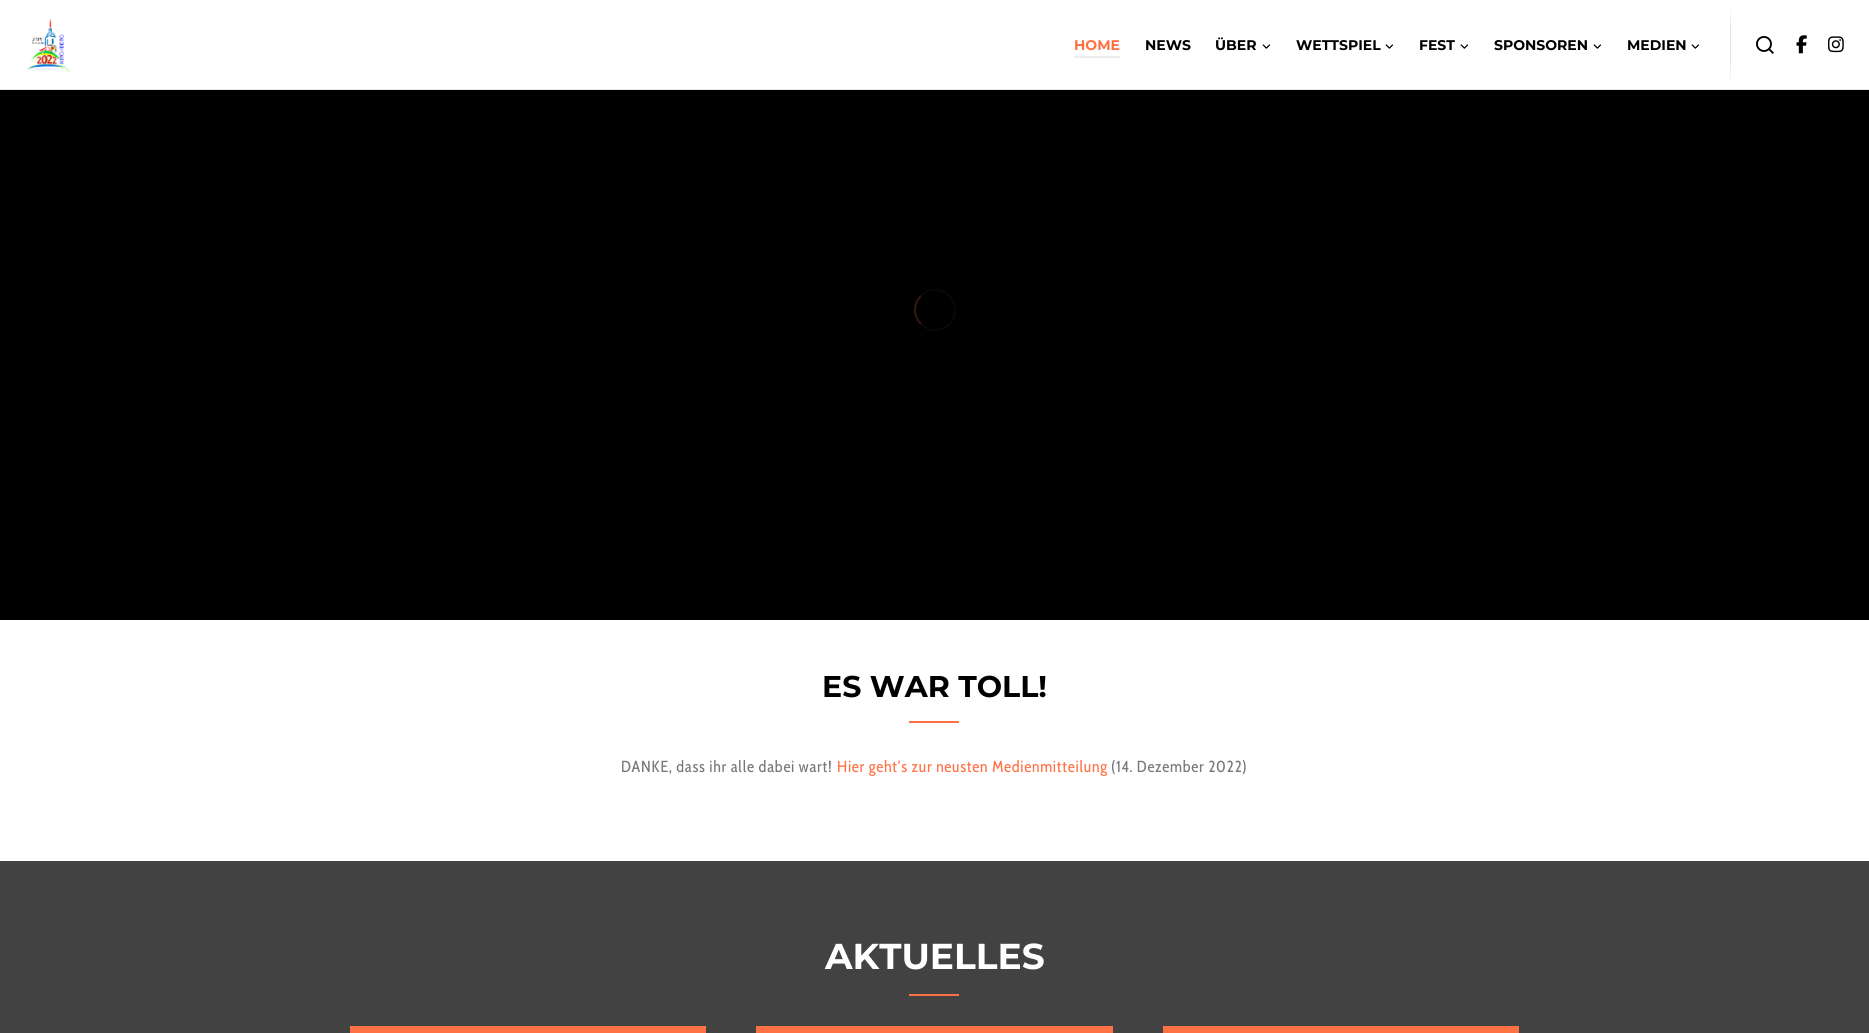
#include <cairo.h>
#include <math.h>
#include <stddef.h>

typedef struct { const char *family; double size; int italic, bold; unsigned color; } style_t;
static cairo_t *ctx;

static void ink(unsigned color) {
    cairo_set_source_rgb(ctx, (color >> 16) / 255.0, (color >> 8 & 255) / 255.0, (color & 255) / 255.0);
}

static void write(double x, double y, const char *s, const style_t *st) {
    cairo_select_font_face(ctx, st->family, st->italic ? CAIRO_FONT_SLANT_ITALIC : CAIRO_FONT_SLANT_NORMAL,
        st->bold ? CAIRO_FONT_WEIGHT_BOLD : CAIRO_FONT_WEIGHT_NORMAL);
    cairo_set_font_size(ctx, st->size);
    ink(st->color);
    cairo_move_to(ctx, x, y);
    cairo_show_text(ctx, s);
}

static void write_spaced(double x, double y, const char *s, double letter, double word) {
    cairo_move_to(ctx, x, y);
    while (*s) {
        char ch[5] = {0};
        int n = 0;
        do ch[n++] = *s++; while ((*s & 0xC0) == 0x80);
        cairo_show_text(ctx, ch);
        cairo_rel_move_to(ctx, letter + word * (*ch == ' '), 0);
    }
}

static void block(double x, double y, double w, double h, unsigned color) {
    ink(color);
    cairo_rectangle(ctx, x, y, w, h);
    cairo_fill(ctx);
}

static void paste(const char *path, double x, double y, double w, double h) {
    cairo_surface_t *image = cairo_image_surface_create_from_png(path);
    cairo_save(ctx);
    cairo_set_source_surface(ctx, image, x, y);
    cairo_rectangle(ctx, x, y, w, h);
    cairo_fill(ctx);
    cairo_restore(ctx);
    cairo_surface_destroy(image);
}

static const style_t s1 = {"Montserrat Thin", 14, 0, 0, 0xff7043};
static const style_t s2 = {"Montserrat Thin", 14, 0, 0, 0x000000};
static const style_t s3 = {"Montserrat Thin", 30, 0, 0, 0x000000};
static const style_t s4 = {"Montserrat Thin", 36, 0, 0, 0xffffff};

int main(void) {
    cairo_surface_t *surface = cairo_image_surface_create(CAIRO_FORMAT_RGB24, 1869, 1033);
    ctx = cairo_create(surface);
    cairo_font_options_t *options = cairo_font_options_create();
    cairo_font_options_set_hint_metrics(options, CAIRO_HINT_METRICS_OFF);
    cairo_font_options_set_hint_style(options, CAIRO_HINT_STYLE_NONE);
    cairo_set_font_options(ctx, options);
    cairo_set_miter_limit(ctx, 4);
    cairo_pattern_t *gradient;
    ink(0xffffff);
    cairo_paint(ctx);
    block(0, 89, 1869, 1, 0xe6e6e6);
    paste("pic1.png", 26, 19, 44, 54);
    write(1074, 50, "HOME", &s1);
    block(1074, 56, 46, 2, 0xededed);
    write(1145, 50, "NEWS", &s2);
    write(1215, 50, "ÜBER", &s2);
    paste("pic2.png", 1262, 44, 8, 5);
    write(1296, 50, "WETTSPIEL", &s2);
    paste("pic2.png", 1385, 44, 8, 5);
    write(1419, 50, "FEST", &s2);
    paste("pic2.png", 1460, 44, 8, 5);
    write(1494, 50, "SPONSOREN", &s2);
    paste("pic2.png", 1593, 44, 8, 5);
    write(1627, 50, "MEDIEN", &s2);
    paste("pic2.png", 1691, 44, 8, 5);
    gradient = cairo_pattern_create_linear(1731, 0, 1731, 90);
    cairo_pattern_add_color_stop_rgba(gradient, 0.05, 0, 0, 0, 0);
    cairo_pattern_add_color_stop_rgba(gradient, 0.3, 0, 0, 0, 0.1);
    cairo_pattern_add_color_stop_rgba(gradient, 0.7, 0, 0, 0, 0.1);
    cairo_pattern_add_color_stop_rgba(gradient, 0.95, 0, 0, 0, 0);
    cairo_set_source(ctx, gradient);
    cairo_pattern_destroy(gradient);
    cairo_rectangle(ctx, 1730, 9, 1, 72);
    cairo_fill(ctx);
    paste("pic3.png", 1756, 36, 18, 18);
    paste("pic4.png", 1796, 35, 11, 19);
    paste("pic5.png", 1828, 36, 16, 17);
    block(0, 90, 1869, 530, 0x000000);
    cairo_new_path(ctx);
    cairo_move_to(ctx, 921, 296);
    cairo_curve_to(ctx, 924.5, 292, 929.5, 290, 935, 290);
    cairo_curve_to(ctx, 959, 290, 962.5, 325, 939, 329.5);
    cairo_curve_to(ctx, 932.5, 331, 925.5, 329, 921, 324);
    ink(0x080808);
    cairo_stroke(ctx);
    cairo_new_path(ctx);
    cairo_move_to(ctx, 921, 324);
    cairo_curve_to(ctx, 913, 316.5, 913, 303.5, 921, 296);
    ink(0x35170e);
    cairo_stroke(ctx);
    write(822, 697, "ES WAR TOLL!", &s3);
    block(909, 721, 50, 2, 0xff7043);
    cairo_select_font_face(ctx, "Cabin Condensed", CAIRO_FONT_SLANT_NORMAL, CAIRO_FONT_WEIGHT_NORMAL);
    cairo_set_font_size(ctx, 16);
    ink(0x777777);
    write_spaced(621, 772, "DANKE, dass ihr alle dabei wart!", 0.7, 0);
    ink(0xff7043);
    write_spaced(837, 772, "Hier geht’s zur neusten Medienmitteilung", 0.7, 0);
    ink(0x777777);
    write_spaced(1111, 772, "(14. Dezember 2022)", 0.7, 0);
    block(0, 861, 1869, 172, 0x424242);
    write(825, 969, "AKTUELLES", &s4);
    block(909, 994, 50, 2, 0xff7043);
    block(350, 1026, 356, 7, 0xff7043);
    block(756, 1026, 357, 7, 0xff7043);
    block(1163, 1026, 356, 7, 0xff7043);
    cairo_surface_write_to_png(surface, "screenshot.png");
    cairo_font_options_destroy(options);
    cairo_destroy(ctx);
    cairo_surface_destroy(surface);
    return 0;
}
